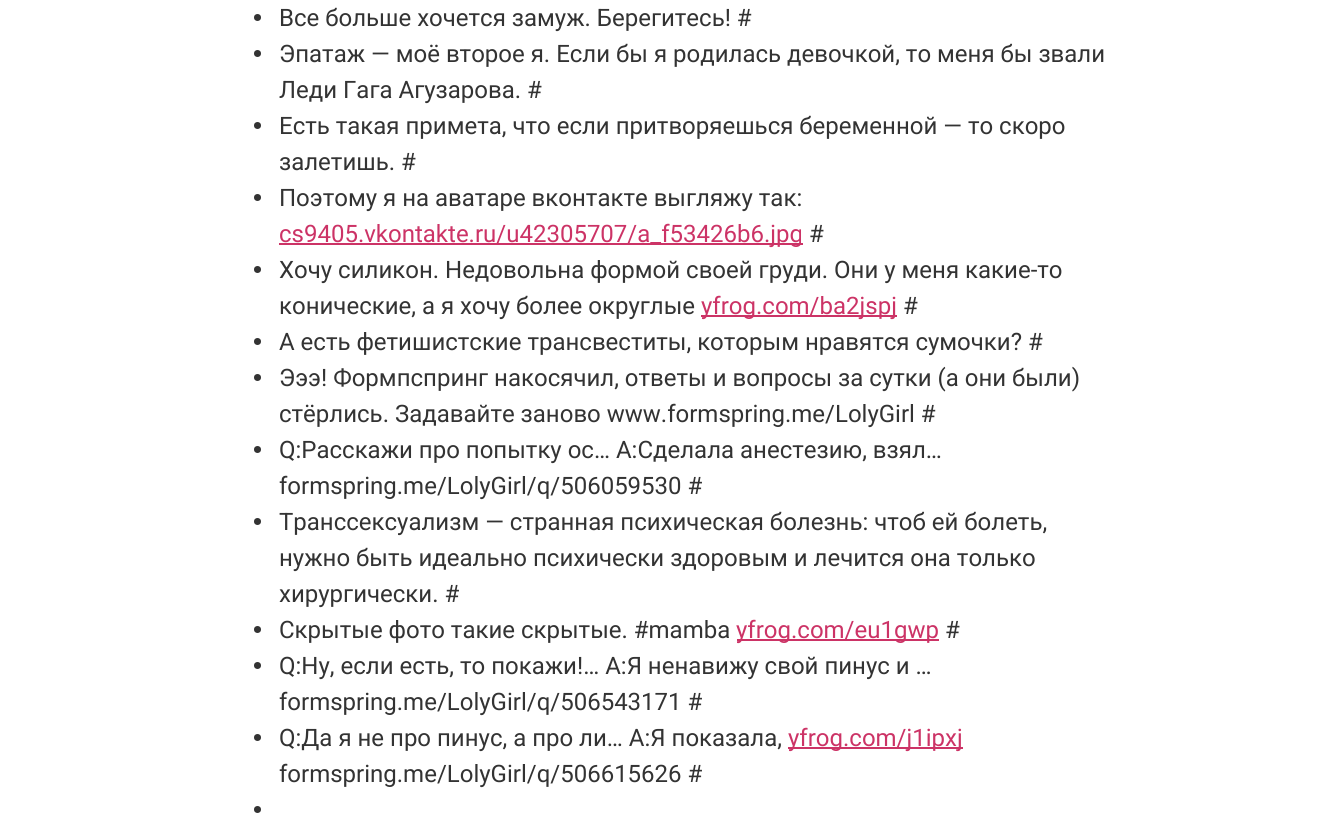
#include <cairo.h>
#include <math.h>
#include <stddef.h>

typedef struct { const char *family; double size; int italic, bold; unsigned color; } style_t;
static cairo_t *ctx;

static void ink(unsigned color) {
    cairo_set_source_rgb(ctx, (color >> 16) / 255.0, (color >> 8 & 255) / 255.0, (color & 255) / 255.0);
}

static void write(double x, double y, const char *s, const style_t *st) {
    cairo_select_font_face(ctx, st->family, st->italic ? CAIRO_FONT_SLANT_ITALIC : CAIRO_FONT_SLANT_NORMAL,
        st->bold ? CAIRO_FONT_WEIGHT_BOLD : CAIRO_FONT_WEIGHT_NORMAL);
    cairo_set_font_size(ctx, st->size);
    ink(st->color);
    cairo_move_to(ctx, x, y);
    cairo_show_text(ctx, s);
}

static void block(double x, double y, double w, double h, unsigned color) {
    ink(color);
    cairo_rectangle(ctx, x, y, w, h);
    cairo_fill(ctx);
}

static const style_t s1 = {"Roboto", 24, 0, 0, 0x333333};
static const style_t s2 = {"Roboto", 24, 0, 0, 0xcc3366};

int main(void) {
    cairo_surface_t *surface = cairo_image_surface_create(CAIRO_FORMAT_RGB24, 1338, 813);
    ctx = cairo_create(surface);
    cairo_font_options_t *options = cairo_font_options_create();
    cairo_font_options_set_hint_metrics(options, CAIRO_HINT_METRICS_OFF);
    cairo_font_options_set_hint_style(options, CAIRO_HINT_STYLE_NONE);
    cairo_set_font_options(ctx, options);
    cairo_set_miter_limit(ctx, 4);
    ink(0xffffff);
    cairo_paint(ctx);
    ink(0x333333);
    cairo_arc(ctx, 257.5, 17.5, 3.5, 0, 2 * M_PI);
    cairo_fill(ctx);
    write(279, 26, "Все больше хочется замуж. Берегитесь! #", &s1);
    cairo_new_path(ctx);
    cairo_arc(ctx, 257.5, 53.5, 3.5, 0, 2 * M_PI);
    cairo_fill(ctx);
    write(279, 62, "Эпатаж — моё второе я. Если бы я родилась девочкой, то меня бы звали", &s1);
    write(279, 98, "Леди Гага Агузарова. #", &s1);
    cairo_new_path(ctx);
    cairo_arc(ctx, 257.5, 125.5, 3.5, 0, 2 * M_PI);
    cairo_fill(ctx);
    write(279, 134, "Есть такая примета, что если притворяешься беременной — то скоро", &s1);
    write(279, 170, "залетишь. #", &s1);
    cairo_new_path(ctx);
    cairo_arc(ctx, 257.5, 197.5, 3.5, 0, 2 * M_PI);
    cairo_fill(ctx);
    write(279, 206, "Поэтому я на аватаре вконтакте выгляжу так:", &s1);
    block(279, 243, 524, 2, 0xcc3366);
    write(279, 242, "cs9405.vkontakte.ru/u42305707/a_f53426b6.jpg", &s2);
    write(809, 242, "#", &s1);
    cairo_new_path(ctx);
    cairo_arc(ctx, 257.5, 269.5, 3.5, 0, 2 * M_PI);
    cairo_fill(ctx);
    write(279, 278, "Хочу силикон. Недовольна формой своей груди. Они у меня какие-то", &s1);
    write(279, 314, "конические, а я хочу более округлые", &s1);
    block(701, 315, 196, 2, 0xcc3366);
    write(701, 314, "yfrog.com/ba2jspj", &s2);
    write(903, 314, "#", &s1);
    cairo_new_path(ctx);
    cairo_arc(ctx, 257.5, 341.5, 3.5, 0, 2 * M_PI);
    cairo_fill(ctx);
    write(279, 350, "А есть фетишистские трансвеститы, которым нравятся сумочки? #", &s1);
    cairo_new_path(ctx);
    cairo_arc(ctx, 257.5, 377.5, 3.5, 0, 2 * M_PI);
    cairo_fill(ctx);
    write(279, 386, "Эээ! Формпспринг накосячил, ответы и вопросы за сутки (а они были)", &s1);
    write(279, 422, "стёрлись. Задавайте заново www.formspring.me/LolyGirl #", &s1);
    cairo_new_path(ctx);
    cairo_arc(ctx, 257.5, 449.5, 3.5, 0, 2 * M_PI);
    cairo_fill(ctx);
    write(279, 458, "Q:Расскажи про попытку ос… A:Сделала анестезию, взял…", &s1);
    write(279, 494, "formspring.me/LolyGirl/q/506059530 #", &s1);
    cairo_new_path(ctx);
    cairo_arc(ctx, 257.5, 521.5, 3.5, 0, 2 * M_PI);
    cairo_fill(ctx);
    write(279, 530, "Транссексуализм — странная психическая болезнь: чтоб ей болеть,", &s1);
    write(279, 566, "нужно быть идеально психически здоровым и лечится она только", &s1);
    write(279, 602, "хирургически. #", &s1);
    cairo_new_path(ctx);
    cairo_arc(ctx, 257.5, 629.5, 3.5, 0, 2 * M_PI);
    cairo_fill(ctx);
    write(279, 638, "Скрытые фото такие скрытые. #mamba", &s1);
    block(737, 639, 202, 2, 0xcc3366);
    write(736, 638, "yfrog.com/eu1gwp", &s2);
    write(945, 638, "#", &s1);
    cairo_new_path(ctx);
    cairo_arc(ctx, 257.5, 665.5, 3.5, 0, 2 * M_PI);
    cairo_fill(ctx);
    write(279, 674, "Q:Ну, если есть, то покажи!… A:Я ненавижу свой пинус и …", &s1);
    write(279, 710, "formspring.me/LolyGirl/q/506543171 #", &s1);
    cairo_new_path(ctx);
    cairo_arc(ctx, 257.5, 737.5, 3.5, 0, 2 * M_PI);
    cairo_fill(ctx);
    write(279, 746, "Q:Да я не про пинус, а про ли… A:Я показала,", &s1);
    block(788, 747, 175, 2, 0xcc3366);
    write(788, 746, "yfrog.com/j1ipxj", &s2);
    write(279, 782, "formspring.me/LolyGirl/q/506615626 #", &s1);
    cairo_new_path(ctx);
    cairo_arc(ctx, 257.5, 809.5, 3.5, 0, 2 * M_PI);
    cairo_fill(ctx);
    cairo_surface_write_to_png(surface, "screenshot.png");
    cairo_font_options_destroy(options);
    cairo_destroy(ctx);
    cairo_surface_destroy(surface);
    return 0;
}
